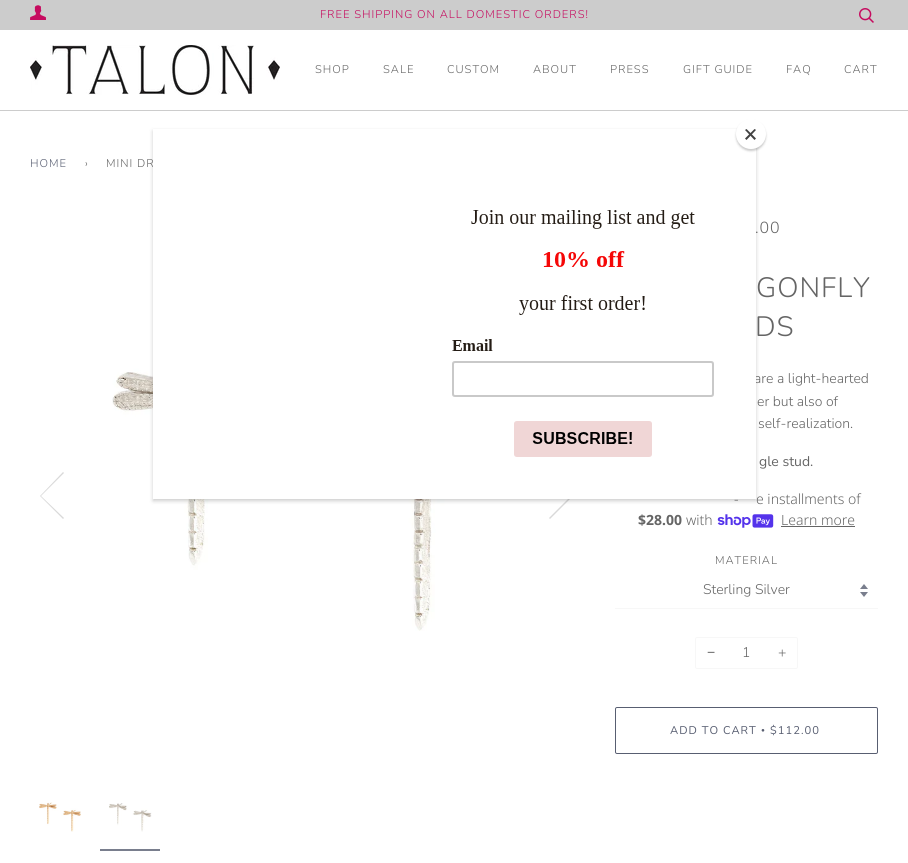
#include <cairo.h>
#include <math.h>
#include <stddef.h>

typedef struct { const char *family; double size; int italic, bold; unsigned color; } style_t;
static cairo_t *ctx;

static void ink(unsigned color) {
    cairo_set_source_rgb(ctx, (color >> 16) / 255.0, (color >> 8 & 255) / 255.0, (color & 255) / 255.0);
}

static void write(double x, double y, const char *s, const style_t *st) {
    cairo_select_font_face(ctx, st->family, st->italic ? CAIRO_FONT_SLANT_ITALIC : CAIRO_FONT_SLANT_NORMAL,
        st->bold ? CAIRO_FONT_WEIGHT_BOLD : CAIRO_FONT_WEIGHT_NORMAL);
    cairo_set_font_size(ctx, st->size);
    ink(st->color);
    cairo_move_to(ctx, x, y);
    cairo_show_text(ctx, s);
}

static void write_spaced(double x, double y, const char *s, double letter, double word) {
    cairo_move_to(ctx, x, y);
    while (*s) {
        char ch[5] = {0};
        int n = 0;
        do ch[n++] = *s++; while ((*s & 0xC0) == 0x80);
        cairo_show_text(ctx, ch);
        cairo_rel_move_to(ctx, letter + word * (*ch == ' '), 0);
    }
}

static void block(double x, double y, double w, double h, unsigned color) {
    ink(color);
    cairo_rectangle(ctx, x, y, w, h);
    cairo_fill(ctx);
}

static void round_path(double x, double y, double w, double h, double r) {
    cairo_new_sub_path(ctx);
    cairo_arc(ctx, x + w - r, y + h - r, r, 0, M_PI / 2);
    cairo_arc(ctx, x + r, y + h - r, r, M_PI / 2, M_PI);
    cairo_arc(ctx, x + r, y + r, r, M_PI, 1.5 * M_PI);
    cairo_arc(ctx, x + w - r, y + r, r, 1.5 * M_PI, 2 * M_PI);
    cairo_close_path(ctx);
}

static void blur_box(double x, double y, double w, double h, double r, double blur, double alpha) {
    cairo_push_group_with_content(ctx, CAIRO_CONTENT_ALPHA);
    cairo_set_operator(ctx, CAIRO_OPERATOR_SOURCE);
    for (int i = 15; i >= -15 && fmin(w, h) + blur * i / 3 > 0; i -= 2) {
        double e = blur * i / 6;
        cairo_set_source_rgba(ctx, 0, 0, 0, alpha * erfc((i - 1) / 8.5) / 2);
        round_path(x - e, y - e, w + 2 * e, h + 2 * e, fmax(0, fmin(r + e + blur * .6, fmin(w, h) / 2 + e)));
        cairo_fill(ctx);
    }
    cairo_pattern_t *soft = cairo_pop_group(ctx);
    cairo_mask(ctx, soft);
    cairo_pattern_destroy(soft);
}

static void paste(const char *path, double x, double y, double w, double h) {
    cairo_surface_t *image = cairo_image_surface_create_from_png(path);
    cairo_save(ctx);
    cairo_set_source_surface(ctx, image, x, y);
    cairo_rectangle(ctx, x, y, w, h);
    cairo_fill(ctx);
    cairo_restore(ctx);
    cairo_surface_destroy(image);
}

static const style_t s1 = {"Nunito Light", 14, 0, 0, 0x656565};
static const style_t s2 = {"Nunito", 14, 0, 0, 0x656565};
static const style_t s3 = {"Noto Sans Light", 14, 0, 0, 0x656565};
static const style_t s4 = {"Noto Sans", 14, 0, 1, 0x656565};
static const style_t s5 = {"Liberation Sans", 14, 0, 0, 0x656565};

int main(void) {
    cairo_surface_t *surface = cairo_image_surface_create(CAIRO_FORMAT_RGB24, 908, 863);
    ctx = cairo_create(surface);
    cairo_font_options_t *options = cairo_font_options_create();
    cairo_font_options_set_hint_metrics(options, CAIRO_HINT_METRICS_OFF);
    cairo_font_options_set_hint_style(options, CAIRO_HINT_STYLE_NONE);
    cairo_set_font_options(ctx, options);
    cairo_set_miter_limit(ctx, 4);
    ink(0xffffff);
    cairo_paint(ctx);
    block(0, 0, 908, 30, 0xcccccc);
    paste("pic1.png", 30, 5, 16, 15);
    cairo_select_font_face(ctx, "Nunito Light", CAIRO_FONT_SLANT_NORMAL, CAIRO_FONT_WEIGHT_NORMAL);
    cairo_set_font_size(ctx, 11.2);
    ink(0xc60b5f);
    write_spaced(320, 18, "FREE SHIPPING ON ALL DOMESTIC ORDERS!", 1, 0);
    paste("pic2.png", 859, 8, 15, 15);
    block(0, 110, 908, 1, 0xcccccc);
    paste("pic3.png", 30, 45, 250, 50);
    ink(0x656565);
    write_spaced(315, 73, "SHOP", 1, 0);
    write_spaced(383, 73, "SALE", 1, 0);
    write_spaced(447, 73, "CUSTOM", 1, 0);
    write_spaced(533, 73, "ABOUT", 1, 0);
    write_spaced(610, 73, "PRESS", 1, 0);
    write_spaced(683, 73, "GIFT GUIDE", 1, 0);
    write_spaced(786, 73, "FAQ", 1, 0);
    write_spaced(844, 73, "CART", 1, 0);
    ink(0x000000);
    blur_box(736, 121, 30, 30, 15, 1, 0.2);
    paste("pic5.png", 112, 365, 394, 266);
    ink(0xd9d9d9);
    cairo_new_path(ctx);
    cairo_move_to(ctx, 573, 495);
    cairo_line_to(ctx, 550, 472);
    cairo_line_to(ctx, 550, 473);
    cairo_line_to(ctx, 572, 495);
    cairo_line_to(ctx, 549, 518);
    cairo_line_to(ctx, 550, 519);
    cairo_line_to(ctx, 574, 495);
    cairo_close_path(ctx);
    cairo_fill(ctx);
    cairo_save(ctx);
    cairo_set_fill_rule(ctx, CAIRO_FILL_RULE_EVEN_ODD);
    cairo_new_path(ctx);
    cairo_move_to(ctx, 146, 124);
    cairo_line_to(ctx, 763, 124);
    cairo_line_to(ctx, 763, 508);
    cairo_line_to(ctx, 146, 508);
    cairo_close_path(ctx);
    cairo_move_to(ctx, 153, 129);
    cairo_line_to(ctx, 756, 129);
    cairo_line_to(ctx, 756, 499);
    cairo_line_to(ctx, 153, 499);
    cairo_close_path(ctx);
    cairo_clip(ctx);
    ink(0x000000);
    blur_box(153, 131, 603, 370, 0, 2, 0.2);
    cairo_restore(ctx);
    ink(0xffffff);
    cairo_arc(ctx, 751, 134, 15, 0, 2 * M_PI);
    cairo_fill(ctx);
    ink(0x414141);
    cairo_new_path(ctx);
    cairo_move_to(ctx, 754.5, 129);
    cairo_line_to(ctx, 756, 130);
    cairo_line_to(ctx, 746.5, 140);
    cairo_line_to(ctx, 745, 138.5);
    cairo_close_path(ctx);
    cairo_fill(ctx);
    cairo_new_path(ctx);
    cairo_move_to(ctx, 745, 130);
    cairo_line_to(ctx, 746.5, 129);
    cairo_line_to(ctx, 756, 138.5);
    cairo_line_to(ctx, 754.5, 140);
    cairo_close_path(ctx);
    cairo_fill(ctx);
    ink(0x656565);
    write_spaced(106, 167, "MINI DR", 1, 0);
    write(754, 383, "are a light-hearted", &s1);
    paste("pic4.png", 153, 159, 603, 340);
    cairo_set_font_size(ctx, 11.2);
    ink(0x585e71);
    write_spaced(30, 167, "HOME", 1, 0);
    ink(0x656565);
    write_spaced(85, 167, "›", 1, 0);
    ink(0xd9d9d9);
    cairo_new_path(ctx);
    cairo_move_to(ctx, 40, 496);
    cairo_line_to(ctx, 63, 519);
    cairo_line_to(ctx, 64, 518);
    cairo_line_to(ctx, 41, 496);
    cairo_line_to(ctx, 64, 473);
    cairo_line_to(ctx, 63, 472);
    cairo_close_path(ctx);
    cairo_fill(ctx);
    paste("pic6.png", 39, 802, 42, 30);
    paste("pic7.png", 109, 803, 43, 29);
    block(100, 849, 60, 2, 0x797e8d);
    cairo_set_font_size(ctx, 16);
    ink(0x656565);
    write_spaced(755, 233, ".00", 1, 0);
    cairo_set_font_size(ctx, 28);
    write_spaced(756, 297, "GONFLY", 1, 0);
    write_spaced(755, 336, "DS", 1, 0);
    write(757, 406, "er but also of", &s1);
    write(758, 428, "self-realization.", &s1);
    write(759, 466, "gle stud.", &s2);
    write(734, 504, "-", &s3);
    write(756, 504, "e installments of", &s3);
    write(638, 525, "$28.00", &s4);
    write(686, 525, "with", &s3);
    paste("pic8.png", 717, 514, 57, 14);
    write(781, 525, "Learn more", &s3);
    block(781, 526, 74, 1, 0x656565);
    cairo_select_font_face(ctx, "Nunito Light", CAIRO_FONT_SLANT_NORMAL, CAIRO_FONT_WEIGHT_NORMAL);
    cairo_set_font_size(ctx, 11.2);
    write_spaced(715, 564, "MATERIAL", 1, 0);
    paste("pic9.png", 860, 584, 8, 13);
    block(615, 608, 263, 1, 0xf7f7f7);
    write(703, 594, "Sterling Silver", &s1);
    round_path(695.5, 637.5, 102, 31, 1.5);
    ink(0xf7f7f7);
    cairo_set_line_width(ctx, 1);
    cairo_stroke(ctx);
    write(707, 657, "−", &s5);
    write(742, 657, "1", &s1);
    write(778, 657, "+", &s1);
    round_path(615.5, 707.5, 262, 46, 1.5);
    ink(0x585e71);
    cairo_stroke(ctx);
    cairo_select_font_face(ctx, "Nunito", CAIRO_FONT_SLANT_NORMAL, CAIRO_FONT_WEIGHT_NORMAL);
    cairo_set_font_size(ctx, 11.2);
    write_spaced(670, 734, "ADD TO CART", 1, 0);
    cairo_select_font_face(ctx, "Liberation Serif", CAIRO_FONT_SLANT_NORMAL, CAIRO_FONT_WEIGHT_NORMAL);
    write_spaced(761, 734, "•", 1, 0);
    cairo_select_font_face(ctx, "Nunito", CAIRO_FONT_SLANT_NORMAL, CAIRO_FONT_WEIGHT_NORMAL);
    write_spaced(770, 734, "$112.00", 1, 0);
    cairo_surface_write_to_png(surface, "screenshot.png");
    cairo_font_options_destroy(options);
    cairo_destroy(ctx);
    cairo_surface_destroy(surface);
    return 0;
}
